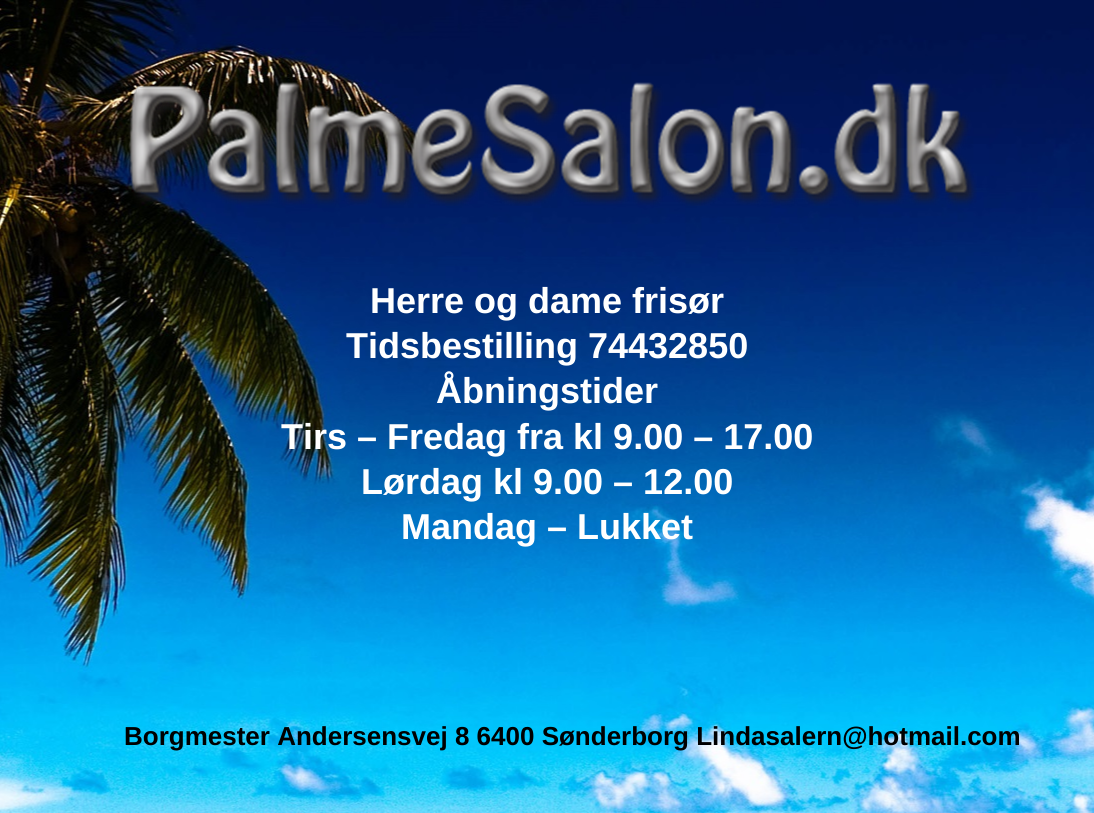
#include <cairo.h>
#include <math.h>
#include <stddef.h>

typedef struct { const char *family; double size; int italic, bold; unsigned color; } style_t;
static cairo_t *ctx;

static void ink(unsigned color) {
    cairo_set_source_rgb(ctx, (color >> 16) / 255.0, (color >> 8 & 255) / 255.0, (color & 255) / 255.0);
}

static void write(double x, double y, const char *s, const style_t *st) {
    cairo_select_font_face(ctx, st->family, st->italic ? CAIRO_FONT_SLANT_ITALIC : CAIRO_FONT_SLANT_NORMAL,
        st->bold ? CAIRO_FONT_WEIGHT_BOLD : CAIRO_FONT_WEIGHT_NORMAL);
    cairo_set_font_size(ctx, st->size);
    ink(st->color);
    cairo_move_to(ctx, x, y);
    cairo_show_text(ctx, s);
}

static void paste(const char *path, double x, double y, double w, double h) {
    cairo_surface_t *image = cairo_image_surface_create_from_png(path);
    cairo_save(ctx);
    cairo_set_source_surface(ctx, image, x, y);
    cairo_rectangle(ctx, x, y, w, h);
    cairo_fill(ctx);
    cairo_restore(ctx);
    cairo_surface_destroy(image);
}

static const style_t s1 = {"Liberation Sans", 36, 0, 1, 0xffffff};
static const style_t s2 = {"Liberation Sans", 26, 0, 1, 0x000000};

int main(void) {
    cairo_surface_t *surface = cairo_image_surface_create(CAIRO_FORMAT_RGB24, 1094, 813);
    ctx = cairo_create(surface);
    cairo_font_options_t *options = cairo_font_options_create();
    cairo_font_options_set_hint_metrics(options, CAIRO_HINT_METRICS_OFF);
    cairo_font_options_set_hint_style(options, CAIRO_HINT_STYLE_NONE);
    cairo_set_font_options(ctx, options);
    cairo_set_miter_limit(ctx, 4);
    ink(0xffffff);
    cairo_paint(ctx);
    paste("pic1.png", 0, 0, 1094, 813);
    paste("pic2.png", 129, 82, 848, 124);
    write(370, 313, "Herre og dame frisør", &s1);
    write(346, 358, "Tidsbestilling 74432850", &s1);
    write(436, 403, "Åbningstider", &s1);
    write(281, 449, "Tirs – Fredag fra kl 9.00 – 17.00", &s1);
    write(361, 494, "Lørdag kl 9.00 – 12.00", &s1);
    write(401, 539, "Mandag – Lukket", &s1);
    write(124, 745, "Borgmester Andersensvej 8 6400 Sønderborg Lindasalern@hotmail.com", &s2);
    cairo_surface_write_to_png(surface, "screenshot.png");
    cairo_font_options_destroy(options);
    cairo_destroy(ctx);
    cairo_surface_destroy(surface);
    return 0;
}
